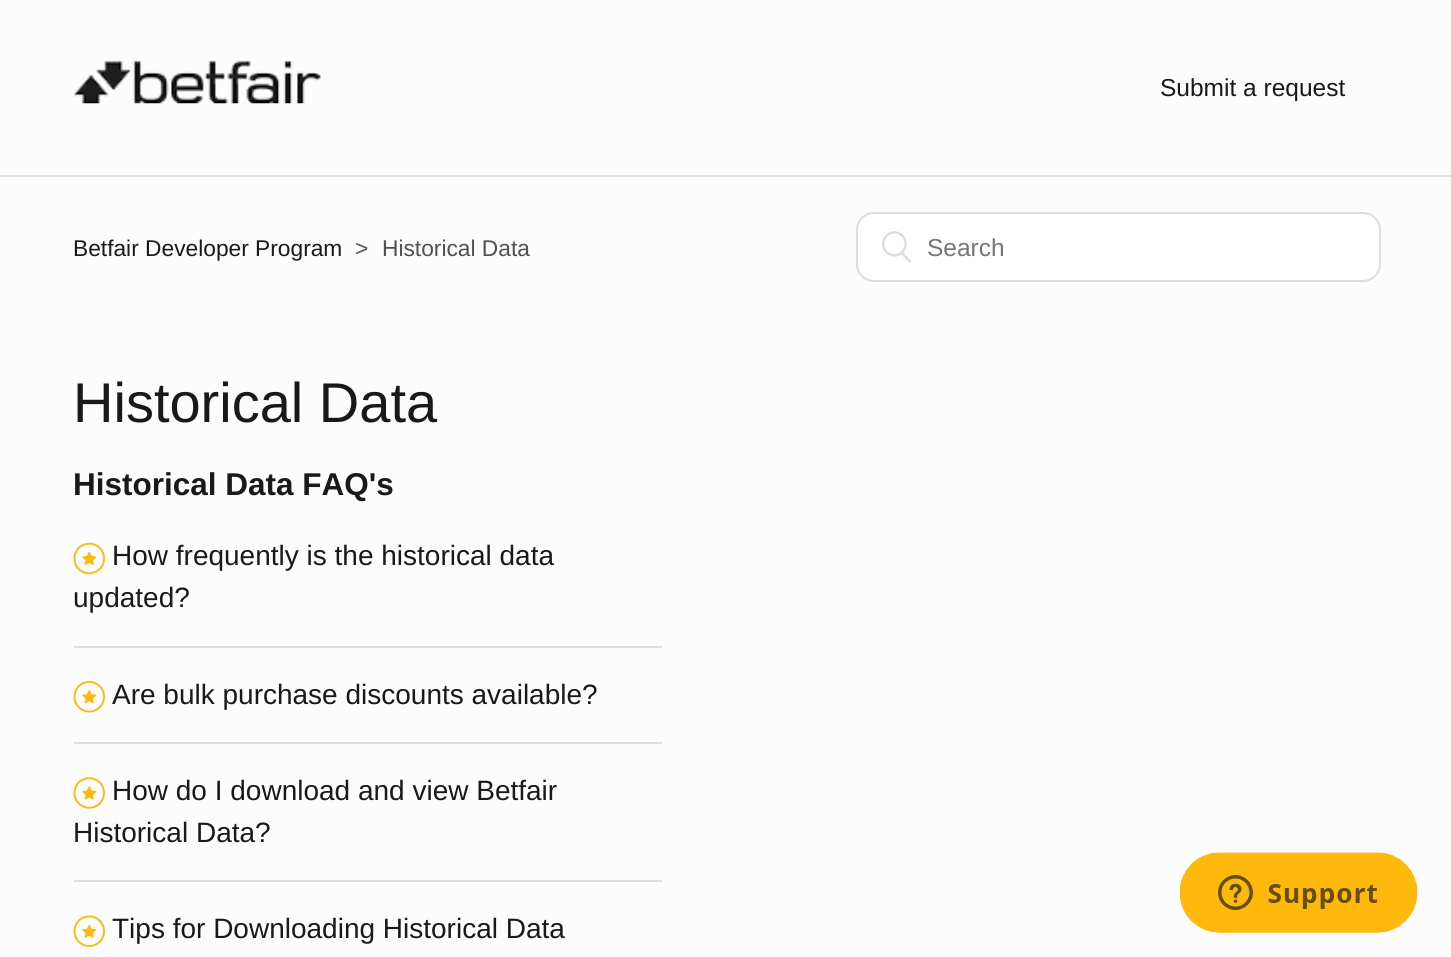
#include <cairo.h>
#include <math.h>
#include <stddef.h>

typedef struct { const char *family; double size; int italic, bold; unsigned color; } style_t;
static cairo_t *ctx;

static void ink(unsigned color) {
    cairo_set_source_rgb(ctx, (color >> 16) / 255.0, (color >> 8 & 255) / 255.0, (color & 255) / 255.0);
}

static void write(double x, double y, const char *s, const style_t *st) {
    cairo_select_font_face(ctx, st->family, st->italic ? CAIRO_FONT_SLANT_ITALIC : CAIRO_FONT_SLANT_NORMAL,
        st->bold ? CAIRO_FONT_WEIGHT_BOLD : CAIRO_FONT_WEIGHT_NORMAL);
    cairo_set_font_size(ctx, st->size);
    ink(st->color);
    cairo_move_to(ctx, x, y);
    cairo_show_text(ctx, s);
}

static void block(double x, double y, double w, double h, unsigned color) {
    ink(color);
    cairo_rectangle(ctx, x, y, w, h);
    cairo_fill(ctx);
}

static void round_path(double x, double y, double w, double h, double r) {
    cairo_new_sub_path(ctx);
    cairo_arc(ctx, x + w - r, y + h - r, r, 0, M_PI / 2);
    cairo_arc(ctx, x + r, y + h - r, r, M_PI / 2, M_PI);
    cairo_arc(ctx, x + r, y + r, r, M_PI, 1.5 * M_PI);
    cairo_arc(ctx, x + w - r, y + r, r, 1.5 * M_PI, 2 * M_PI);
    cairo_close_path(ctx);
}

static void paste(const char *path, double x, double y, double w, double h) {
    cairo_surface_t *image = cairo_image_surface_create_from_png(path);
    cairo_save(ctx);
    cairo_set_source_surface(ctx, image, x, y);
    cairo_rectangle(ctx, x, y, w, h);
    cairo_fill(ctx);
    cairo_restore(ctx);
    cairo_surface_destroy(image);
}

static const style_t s1 = {"Liberation Sans", 24.5, 0, 0, 0x1a1919};
static const style_t s2 = {"Liberation Sans", 22.75, 0, 0, 0x1a1919};
static const style_t s3 = {"Liberation Sans", 22.75, 0, 0, 0x515151};
static const style_t s4 = {"Liberation Sans", 24.5, 0, 0, 0x757575};
static const style_t s5 = {"Liberation Sans", 56, 0, 0, 0x1a1919};
static const style_t s6 = {"Liberation Sans", 31.5, 0, 1, 0x1a1919};
static const style_t s7 = {"Liberation Sans", 28, 0, 0, 0x1a1919};

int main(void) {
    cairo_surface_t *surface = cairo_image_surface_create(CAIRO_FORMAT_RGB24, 1451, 957);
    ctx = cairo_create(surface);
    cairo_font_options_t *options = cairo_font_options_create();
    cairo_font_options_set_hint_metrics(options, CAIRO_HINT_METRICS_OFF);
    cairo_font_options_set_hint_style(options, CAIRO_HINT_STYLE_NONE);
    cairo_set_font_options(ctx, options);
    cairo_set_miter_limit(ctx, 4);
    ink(0xfcfcfc);
    cairo_paint(ctx);
    paste("pic1.png", 73, 60, 248, 44);
    write(1160, 96, "Submit a request", &s1);
    block(0, 175, 1451, 2, 0xdddddd);
    write(73, 256, "Betfair Developer Program", &s2);
    write(355, 256, ">", &s3);
    write(382, 256, "Historical Data", &s3);
    ink(0xffffff);
    round_path(857, 213, 523, 68, 17);
    cairo_fill_preserve(ctx);
    ink(0xdddddd);
    cairo_stroke(ctx);
    paste("pic2.png", 882, 231, 30, 32);
    write(927, 256, "Search", &s4);
    write(73, 422, "Historical Data", &s5);
    write(73, 495, "Historical Data FAQ's", &s6);
    block(74, 646, 588, 2, 0xdddddd);
    paste("pic3.png", 73, 542, 32, 33);
    write(112, 565, "How frequently is the historical data", &s7);
    write(73, 607, "updated?", &s7);
    block(74, 742, 588, 2, 0xdddddd);
    paste("pic4.png", 73, 681, 32, 32);
    write(112, 704, "Are bulk purchase discounts available?", &s7);
    block(74, 880, 588, 2, 0xdddddd);
    paste("pic5.png", 73, 777, 32, 32);
    write(112, 800, "How do I download and view Betfair", &s7);
    write(73, 842, "Historical Data?", &s7);
    paste("pic6.png", 73, 915, 32, 32);
    write(112, 938, "Tips for Downloading Historical Data", &s7);
    paste("pic7.png", 1179, 852, 239, 81);
    cairo_surface_write_to_png(surface, "screenshot.png");
    cairo_font_options_destroy(options);
    cairo_destroy(ctx);
    cairo_surface_destroy(surface);
    return 0;
}
